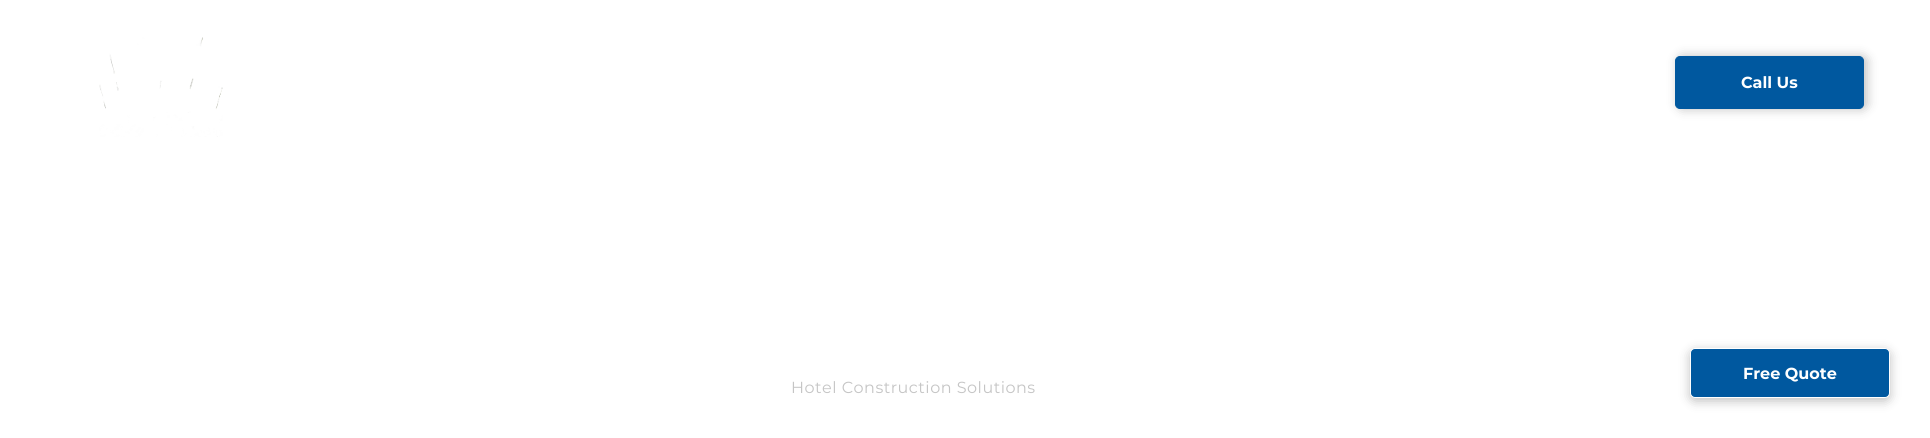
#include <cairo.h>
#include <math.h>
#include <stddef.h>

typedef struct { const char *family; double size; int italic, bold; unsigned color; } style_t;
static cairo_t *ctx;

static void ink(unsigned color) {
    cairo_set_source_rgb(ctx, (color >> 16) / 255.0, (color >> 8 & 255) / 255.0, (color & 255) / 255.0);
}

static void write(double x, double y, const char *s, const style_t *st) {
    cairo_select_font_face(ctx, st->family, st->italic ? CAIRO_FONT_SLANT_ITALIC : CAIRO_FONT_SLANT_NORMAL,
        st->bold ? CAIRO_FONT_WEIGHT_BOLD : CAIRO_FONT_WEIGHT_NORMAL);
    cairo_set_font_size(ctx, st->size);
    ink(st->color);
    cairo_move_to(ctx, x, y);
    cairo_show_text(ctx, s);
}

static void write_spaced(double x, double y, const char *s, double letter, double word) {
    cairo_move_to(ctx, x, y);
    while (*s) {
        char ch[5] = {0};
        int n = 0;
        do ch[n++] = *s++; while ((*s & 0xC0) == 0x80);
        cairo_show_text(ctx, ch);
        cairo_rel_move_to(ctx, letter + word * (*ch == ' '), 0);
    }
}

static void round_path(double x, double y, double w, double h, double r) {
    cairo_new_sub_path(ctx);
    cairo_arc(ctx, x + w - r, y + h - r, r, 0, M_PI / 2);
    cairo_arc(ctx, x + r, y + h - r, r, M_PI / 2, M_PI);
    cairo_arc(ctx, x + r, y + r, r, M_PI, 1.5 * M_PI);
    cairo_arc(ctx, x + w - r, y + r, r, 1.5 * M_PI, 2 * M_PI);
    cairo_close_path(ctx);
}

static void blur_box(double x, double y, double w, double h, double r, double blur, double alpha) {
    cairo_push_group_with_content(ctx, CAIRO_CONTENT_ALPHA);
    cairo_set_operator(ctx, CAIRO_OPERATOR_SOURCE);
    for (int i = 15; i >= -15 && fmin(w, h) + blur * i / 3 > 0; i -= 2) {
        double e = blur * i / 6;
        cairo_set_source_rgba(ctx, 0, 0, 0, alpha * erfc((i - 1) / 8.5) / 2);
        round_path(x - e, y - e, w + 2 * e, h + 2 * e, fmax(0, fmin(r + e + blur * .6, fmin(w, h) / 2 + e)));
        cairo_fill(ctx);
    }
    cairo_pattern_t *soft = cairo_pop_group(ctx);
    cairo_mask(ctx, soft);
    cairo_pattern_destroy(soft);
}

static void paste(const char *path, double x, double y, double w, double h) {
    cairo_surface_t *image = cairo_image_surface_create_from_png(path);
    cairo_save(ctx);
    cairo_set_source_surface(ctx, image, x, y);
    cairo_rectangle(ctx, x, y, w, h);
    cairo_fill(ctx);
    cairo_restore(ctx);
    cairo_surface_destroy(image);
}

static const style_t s1 = {"Montserrat", 16, 0, 1, 0xffffff};

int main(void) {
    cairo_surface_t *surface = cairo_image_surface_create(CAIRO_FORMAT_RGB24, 1930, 438);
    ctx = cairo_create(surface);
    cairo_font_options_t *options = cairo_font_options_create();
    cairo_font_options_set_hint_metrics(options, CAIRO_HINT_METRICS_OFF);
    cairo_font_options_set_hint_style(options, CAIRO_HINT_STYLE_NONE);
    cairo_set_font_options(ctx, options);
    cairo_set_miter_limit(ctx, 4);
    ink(0xffffff);
    cairo_paint(ctx);
    paste("pic1.png", 99, 37, 124, 100);
    ink(0x000000);
    blur_box(1678, 56, 189, 53, 5, 5.5, 0.25);
    ink(0x00589f);
    round_path(1675.5, 56.5, 188, 52, 4.5);
    cairo_fill_preserve(ctx);
    cairo_set_line_width(ctx, 1);
    cairo_stroke(ctx);
    write(1741, 88, "Call Us", &s1);
    cairo_select_font_face(ctx, "Montserrat", CAIRO_FONT_SLANT_NORMAL, CAIRO_FONT_WEIGHT_NORMAL);
    ink(0xc5c5c5);
    write_spaced(791, 393, "Hotel Construction Solutions", 0.5, 0);
    ink(0x000000);
    blur_box(1690, 351, 200, 50, 5, 5.5, 0.25);
    ink(0x00589f);
    round_path(1690.5, 348.5, 199, 49, 4.5);
    cairo_fill_preserve(ctx);
    ink(0xffffff);
    cairo_stroke(ctx);
    write(1743, 379, "Free Quote", &s1);
    cairo_surface_write_to_png(surface, "screenshot.png");
    cairo_font_options_destroy(options);
    cairo_destroy(ctx);
    cairo_surface_destroy(surface);
    return 0;
}
